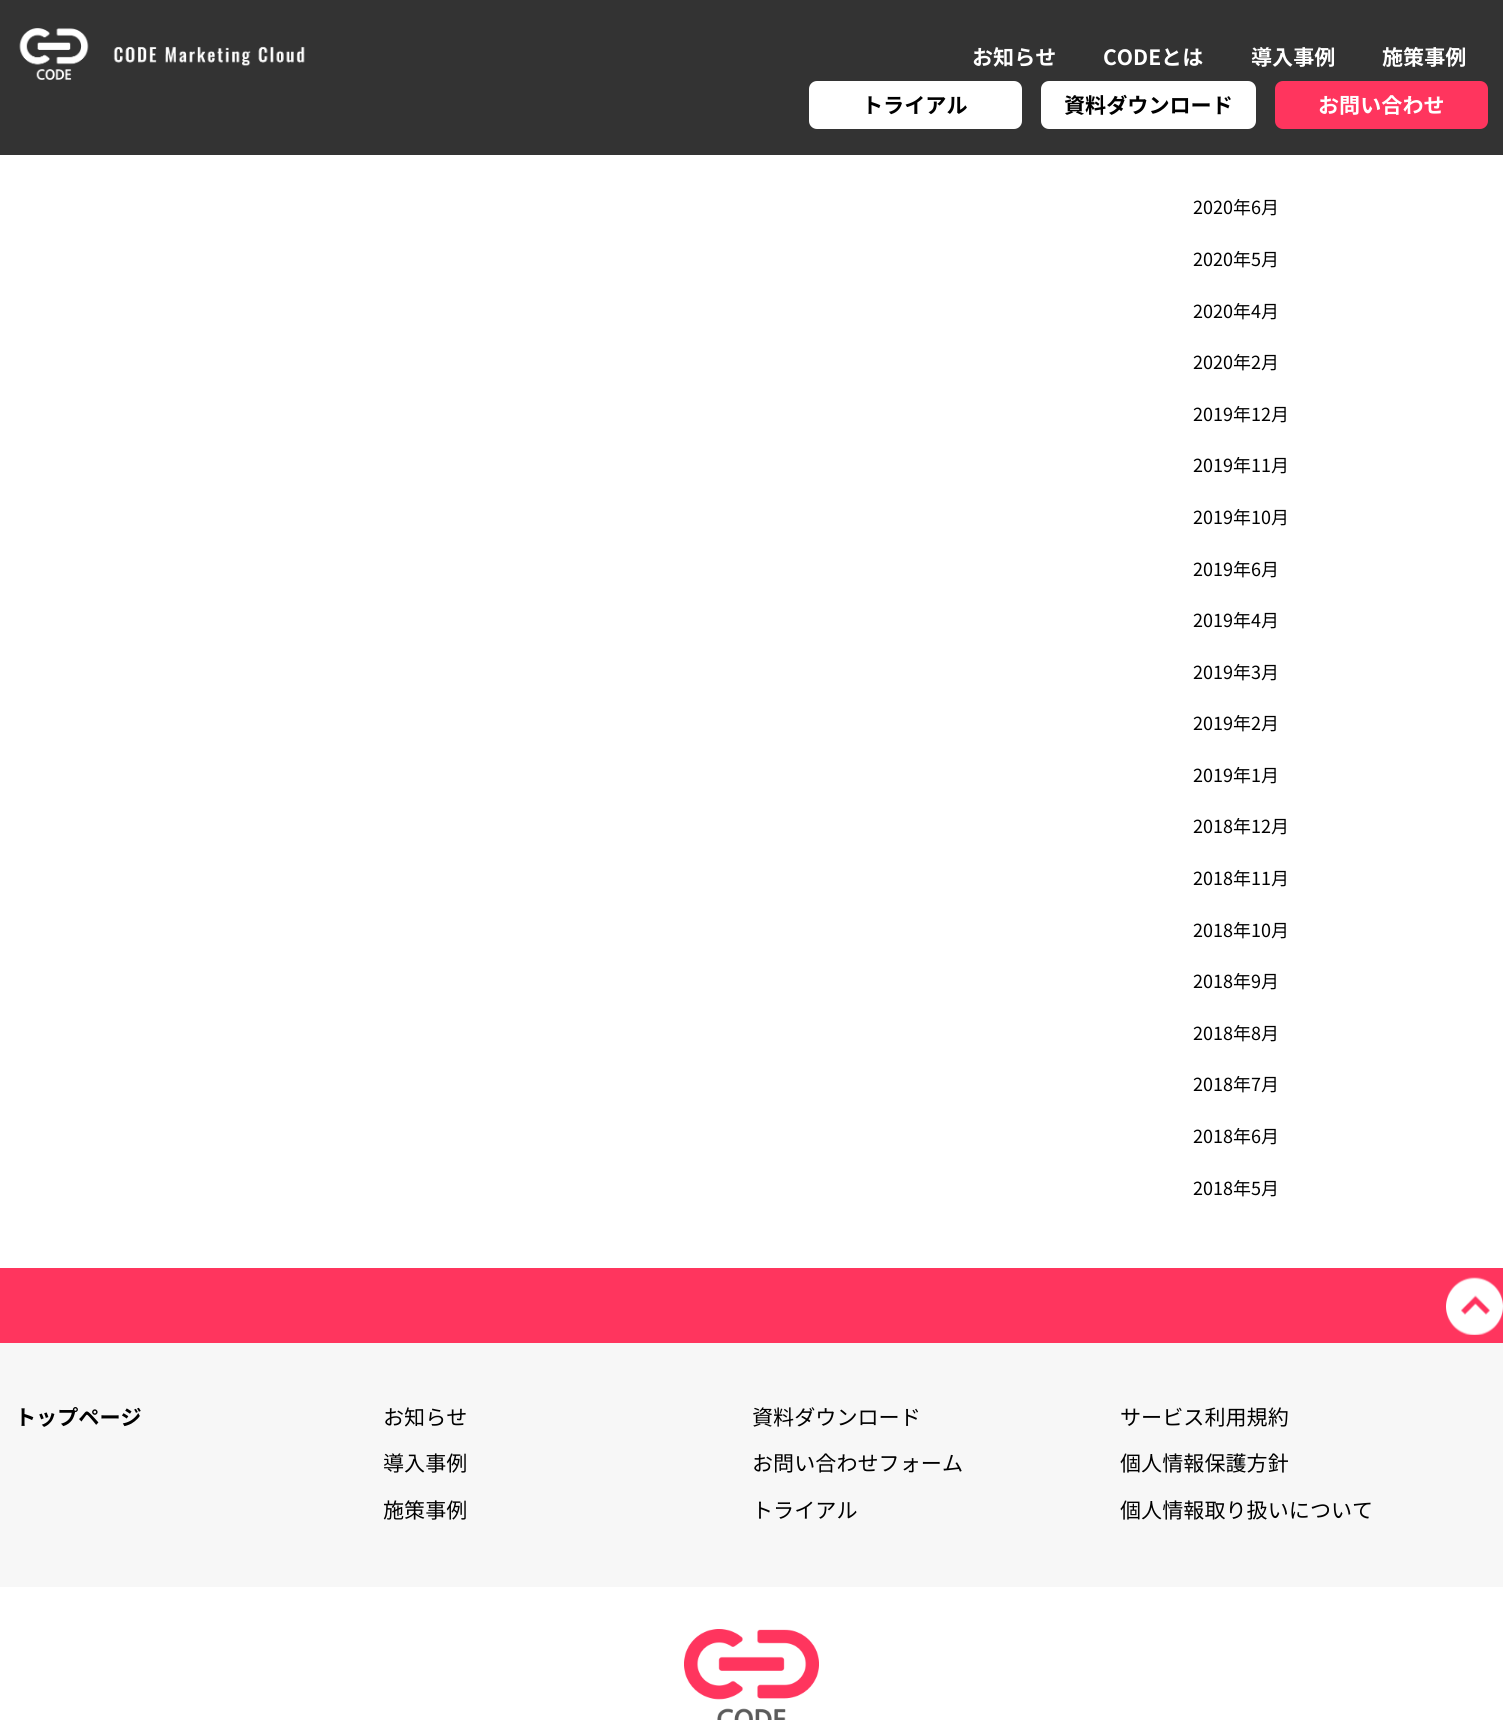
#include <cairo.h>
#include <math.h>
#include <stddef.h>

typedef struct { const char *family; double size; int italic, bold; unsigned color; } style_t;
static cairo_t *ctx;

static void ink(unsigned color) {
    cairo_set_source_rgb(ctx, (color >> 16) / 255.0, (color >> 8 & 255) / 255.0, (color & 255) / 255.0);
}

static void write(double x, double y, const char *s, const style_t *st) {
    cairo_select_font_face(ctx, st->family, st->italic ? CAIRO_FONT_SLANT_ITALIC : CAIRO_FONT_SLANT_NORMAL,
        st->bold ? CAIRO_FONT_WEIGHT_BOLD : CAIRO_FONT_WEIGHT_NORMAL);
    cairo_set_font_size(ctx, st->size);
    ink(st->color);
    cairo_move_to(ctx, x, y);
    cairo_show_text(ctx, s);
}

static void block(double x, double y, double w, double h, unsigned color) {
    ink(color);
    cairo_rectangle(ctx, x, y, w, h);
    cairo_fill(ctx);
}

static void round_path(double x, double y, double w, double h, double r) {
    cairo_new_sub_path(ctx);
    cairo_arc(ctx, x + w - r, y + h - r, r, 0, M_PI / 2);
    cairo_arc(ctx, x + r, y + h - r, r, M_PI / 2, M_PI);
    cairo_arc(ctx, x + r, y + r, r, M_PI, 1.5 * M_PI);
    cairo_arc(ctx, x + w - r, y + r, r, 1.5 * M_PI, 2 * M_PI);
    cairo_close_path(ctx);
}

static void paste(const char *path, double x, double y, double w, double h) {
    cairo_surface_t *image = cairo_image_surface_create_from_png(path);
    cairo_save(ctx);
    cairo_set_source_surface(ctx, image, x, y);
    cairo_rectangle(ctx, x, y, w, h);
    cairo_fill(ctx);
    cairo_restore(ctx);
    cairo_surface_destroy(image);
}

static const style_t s1 = {"Noto Sans JP", 21.1, 0, 1, 0xffffff};
static const style_t s2 = {"Noto Sans JP", 21.1, 0, 1, 0x000000};
static const style_t s3 = {"Noto Sans JP", 18, 0, 0, 0x000000};
static const style_t s4 = {"Noto Sans JP", 21.1, 0, 0, 0x000000};

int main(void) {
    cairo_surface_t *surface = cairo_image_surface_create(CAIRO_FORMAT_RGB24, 1503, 1720);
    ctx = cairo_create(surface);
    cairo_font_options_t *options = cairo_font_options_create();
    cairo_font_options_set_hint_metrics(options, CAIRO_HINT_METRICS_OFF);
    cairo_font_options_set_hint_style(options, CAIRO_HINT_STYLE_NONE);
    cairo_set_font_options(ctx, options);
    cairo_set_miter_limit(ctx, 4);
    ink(0xffffff);
    cairo_paint(ctx);
    cairo_set_source_rgba(ctx, 0, 0, 0, 0.8);
    cairo_rectangle(ctx, 0, 0, 1503, 155);
    cairo_fill(ctx);
    paste("pic1.png", 19, 28, 286, 52);
    write(972, 65, "お知らせ", &s1);
    write(1103, 65, "CODEとは", &s1);
    write(1251, 65, "導入事例", &s1);
    write(1382, 65, "施策事例", &s1);
    round_path(810, 82, 211, 46, 7);
    cairo_fill_preserve(ctx);
    cairo_stroke(ctx);
    write(862, 113, "トライアル", &s2);
    ink(0xffffff);
    round_path(1042, 82, 213, 46, 7);
    cairo_fill_preserve(ctx);
    cairo_stroke(ctx);
    write(1064, 113, "資料ダウンロード", &s2);
    ink(0xff355e);
    round_path(1276, 82, 211, 46, 7);
    cairo_fill_preserve(ctx);
    cairo_stroke(ctx);
    write(1318, 113, "お問い合わせ", &s1);
    write(1193, 214, "2020年6月", &s3);
    write(1193, 266, "2020年5月", &s3);
    write(1193, 318, "2020年4月", &s3);
    write(1193, 369, "2020年2月", &s3);
    write(1193, 421, "2019年12月", &s3);
    write(1193, 472, "2019年11月", &s3);
    write(1193, 524, "2019年10月", &s3);
    write(1193, 576, "2019年6月", &s3);
    write(1193, 627, "2019年4月", &s3);
    write(1193, 679, "2019年3月", &s3);
    write(1193, 730, "2019年2月", &s3);
    write(1193, 782, "2019年1月", &s3);
    write(1193, 833, "2018年12月", &s3);
    write(1193, 885, "2018年11月", &s3);
    write(1193, 937, "2018年10月", &s3);
    write(1193, 988, "2018年9月", &s3);
    write(1193, 1040, "2018年8月", &s3);
    write(1193, 1091, "2018年7月", &s3);
    write(1193, 1143, "2018年6月", &s3);
    write(1193, 1195, "2018年5月", &s3);
    block(0, 1268, 1503, 75, 0xff355e);
    paste("pic2.png", 1446, 1277, 57, 58);
    block(0, 1343, 1503, 244, 0xf7f7f7);
    write(15, 1425, "トップページ", &s2);
    write(383, 1425, "お知らせ", &s4);
    write(383, 1471, "導入事例", &s4);
    write(383, 1518, "施策事例", &s4);
    write(752, 1425, "資料ダウンロード", &s4);
    write(752, 1471, "お問い合わせフォーム", &s4);
    write(752, 1518, "トライアル", &s4);
    write(1120, 1425, "サービス利用規約", &s4);
    write(1120, 1471, "個人情報保護方針", &s4);
    write(1120, 1518, "個人情報取り扱いについて", &s4);
    paste("pic3.png", 684, 1629, 135, 91);
    cairo_surface_write_to_png(surface, "screenshot.png");
    cairo_font_options_destroy(options);
    cairo_destroy(ctx);
    cairo_surface_destroy(surface);
    return 0;
}
